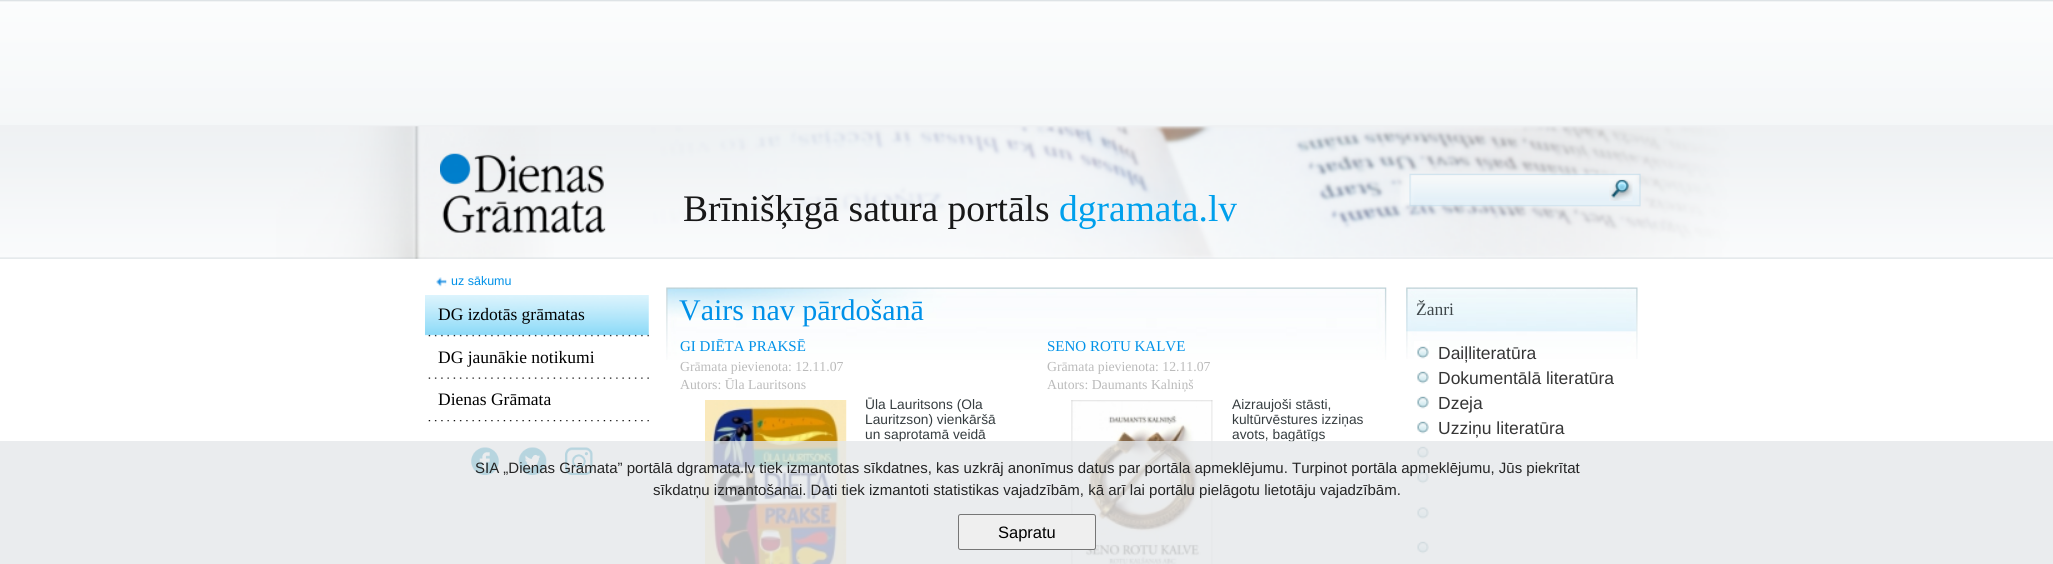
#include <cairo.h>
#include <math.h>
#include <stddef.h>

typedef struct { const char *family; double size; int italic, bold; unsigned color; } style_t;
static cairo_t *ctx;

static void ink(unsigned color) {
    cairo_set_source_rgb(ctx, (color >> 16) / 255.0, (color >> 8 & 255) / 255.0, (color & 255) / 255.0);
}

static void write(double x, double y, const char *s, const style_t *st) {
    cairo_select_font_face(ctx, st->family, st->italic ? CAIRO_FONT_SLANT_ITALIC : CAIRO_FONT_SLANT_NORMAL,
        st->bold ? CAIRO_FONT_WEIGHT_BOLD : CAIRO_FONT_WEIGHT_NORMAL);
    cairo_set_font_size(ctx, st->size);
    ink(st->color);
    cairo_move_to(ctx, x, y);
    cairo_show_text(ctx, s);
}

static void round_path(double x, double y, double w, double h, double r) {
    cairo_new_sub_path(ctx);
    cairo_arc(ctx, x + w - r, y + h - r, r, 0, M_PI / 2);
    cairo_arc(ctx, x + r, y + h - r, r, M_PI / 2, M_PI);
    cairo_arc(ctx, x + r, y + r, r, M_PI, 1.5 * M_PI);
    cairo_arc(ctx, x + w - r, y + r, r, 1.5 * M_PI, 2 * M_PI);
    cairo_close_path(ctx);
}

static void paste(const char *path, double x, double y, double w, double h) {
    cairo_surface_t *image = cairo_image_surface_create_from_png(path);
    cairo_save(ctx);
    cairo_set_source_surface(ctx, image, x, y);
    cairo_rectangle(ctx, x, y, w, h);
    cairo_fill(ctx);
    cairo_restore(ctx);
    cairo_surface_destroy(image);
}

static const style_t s1 = {"Liberation Serif", 37.5, 0, 0, 0x181818};
static const style_t s2 = {"Liberation Serif", 37.5, 0, 0, 0x00a0ec};
static const style_t s3 = {"Liberation Sans", 12.5, 0, 0, 0x0091e8};
static const style_t s4 = {"Liberation Serif", 17.5, 0, 0, 0x000000};
static const style_t s5 = {"Liberation Serif", 30, 0, 0, 0x0091e8};
static const style_t s6 = {"Liberation Serif", 15, 0, 0, 0x0091e8};
static const style_t s7 = {"Liberation Serif", 13.75, 0, 0, 0xbbbbbb};
static const style_t s8 = {"Liberation Sans", 13.75, 0, 0, 0x363d40};
static const style_t s9 = {"Liberation Serif", 17.5, 0, 0, 0x40484b};
static const style_t s10 = {"Liberation Sans", 17.5, 0, 0, 0x363636};
static const style_t s11 = {"Liberation Sans", 15, 0, 0, 0x252525};
static const style_t s12 = {"Liberation Sans", 16.5, 0, 0, 0x000000};

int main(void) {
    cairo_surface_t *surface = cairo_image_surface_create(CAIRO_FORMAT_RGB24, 2053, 564);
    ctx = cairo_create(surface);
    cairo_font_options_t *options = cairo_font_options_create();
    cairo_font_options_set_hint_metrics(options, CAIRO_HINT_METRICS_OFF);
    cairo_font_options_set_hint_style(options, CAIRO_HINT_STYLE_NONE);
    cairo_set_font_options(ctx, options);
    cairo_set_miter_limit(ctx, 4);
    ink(0xffffff);
    cairo_paint(ctx);
    paste("pic1.png", 0, 0, 2053, 125);
    paste("pic2.png", 0, 125, 2053, 134);
    paste("pic3.png", 440, 153, 166, 80);
    paste("pic4.png", 1609, 179, 24, 22);
    write(683, 221, "Brīnišķīgā satura portāls", &s1);
    write(1059, 221, "dgramata.lv", &s2);
    paste("pic5.png", 436, 277, 11, 10);
    write(451, 285, "uz sākumu", &s3);
    paste("pic6.png", 425, 295, 224, 42);
    write(438, 320, "DG izdotās grāmatas", &s4);
    paste("pic7.png", 428, 377, 221, 2);
    write(438, 363, "DG jaunākie notikumi", &s4);
    paste("pic8.png", 428, 420, 221, 2);
    write(438, 405, "Dienas Grāmata", &s4);
    paste("pic9.png", 471, 447, 28, 28);
    paste("pic10.png", 518, 447, 29, 28);
    paste("pic11.png", 565, 447, 28, 28);
    paste("pic12.png", 666, 287, 721, 73);
    write(679, 320, "Vairs nav pārdošanā", &s5);
    write(680, 351, "GI DIĒTA PRAKSĒ", &s6);
    write(680, 371, "Grāmata pievienota: 12.11.07", &s7);
    write(680, 389, "Autors: Ūla Lauritsons", &s7);
    paste("pic13.png", 705, 400, 142, 164);
    write(865, 409, "Ūla Lauritsons (Ola", &s8);
    write(865, 424, "Lauritzson) vienkāršā", &s8);
    write(865, 439, "un saprotamā veidā", &s8);
    write(1047, 351, "SENO ROTU KALVE", &s6);
    write(1047, 371, "Grāmata pievienota: 12.11.07", &s7);
    write(1047, 389, "Autors: Daumants Kalniņš", &s7);
    paste("pic14.png", 1071, 400, 142, 164);
    write(1232, 409, "Aizraujoši stāsti,", &s8);
    write(1232, 424, "kultūrvēstures izziņas", &s8);
    write(1232, 439, "avots, bagātīgs", &s8);
    paste("pic15.png", 1406, 287, 232, 72);
    write(1416, 315, "Žanri", &s9);
    paste("pic16.png", 1414, 341, 15, 18);
    write(1438, 359, "Daiļliteratūra", &s10);
    paste("pic17.png", 1417, 371, 12, 13);
    write(1438, 384, "Dokumentālā literatūra", &s10);
    paste("pic17.png", 1417, 396, 12, 13);
    write(1438, 409, "Dzeja", &s10);
    paste("pic17.png", 1417, 421, 12, 13);
    write(1438, 434, "Uzziņu literatūra", &s10);
    paste("pic17.png", 1417, 446, 12, 13);
    paste("pic17.png", 1417, 471, 12, 13);
    paste("pic18.png", 1417, 507, 12, 12);
    paste("pic17.png", 1417, 541, 12, 13);
    cairo_set_source_rgba(ctx, 0.898, 0.906, 0.914, 0.8);
    cairo_rectangle(ctx, 0, 441, 2053, 123);
    cairo_fill(ctx);
    write(475, 473, "SIA „Dienas Grāmata” portālā dgramata.lv tiek izmantotas sīkdatnes, kas uzkrāj anonīmus datus par portāla apmeklējumu. Turpinot portāla apmeklējumu, Jūs piekrītat", &s11);
    write(653, 495, "sīkdatņu izmantošanai. Dati tiek izmantoti statistikas vajadzībām, kā arī lai portālu pielāgotu lietotāju vajadzībām.", &s11);
    ink(0xefefef);
    round_path(958.5, 514.5, 137, 35, 2);
    cairo_fill_preserve(ctx);
    ink(0x767676);
    cairo_set_line_width(ctx, 1);
    cairo_stroke(ctx);
    write(998, 538, "Sapratu", &s12);
    cairo_surface_write_to_png(surface, "screenshot.png");
    cairo_font_options_destroy(options);
    cairo_destroy(ctx);
    cairo_surface_destroy(surface);
    return 0;
}
